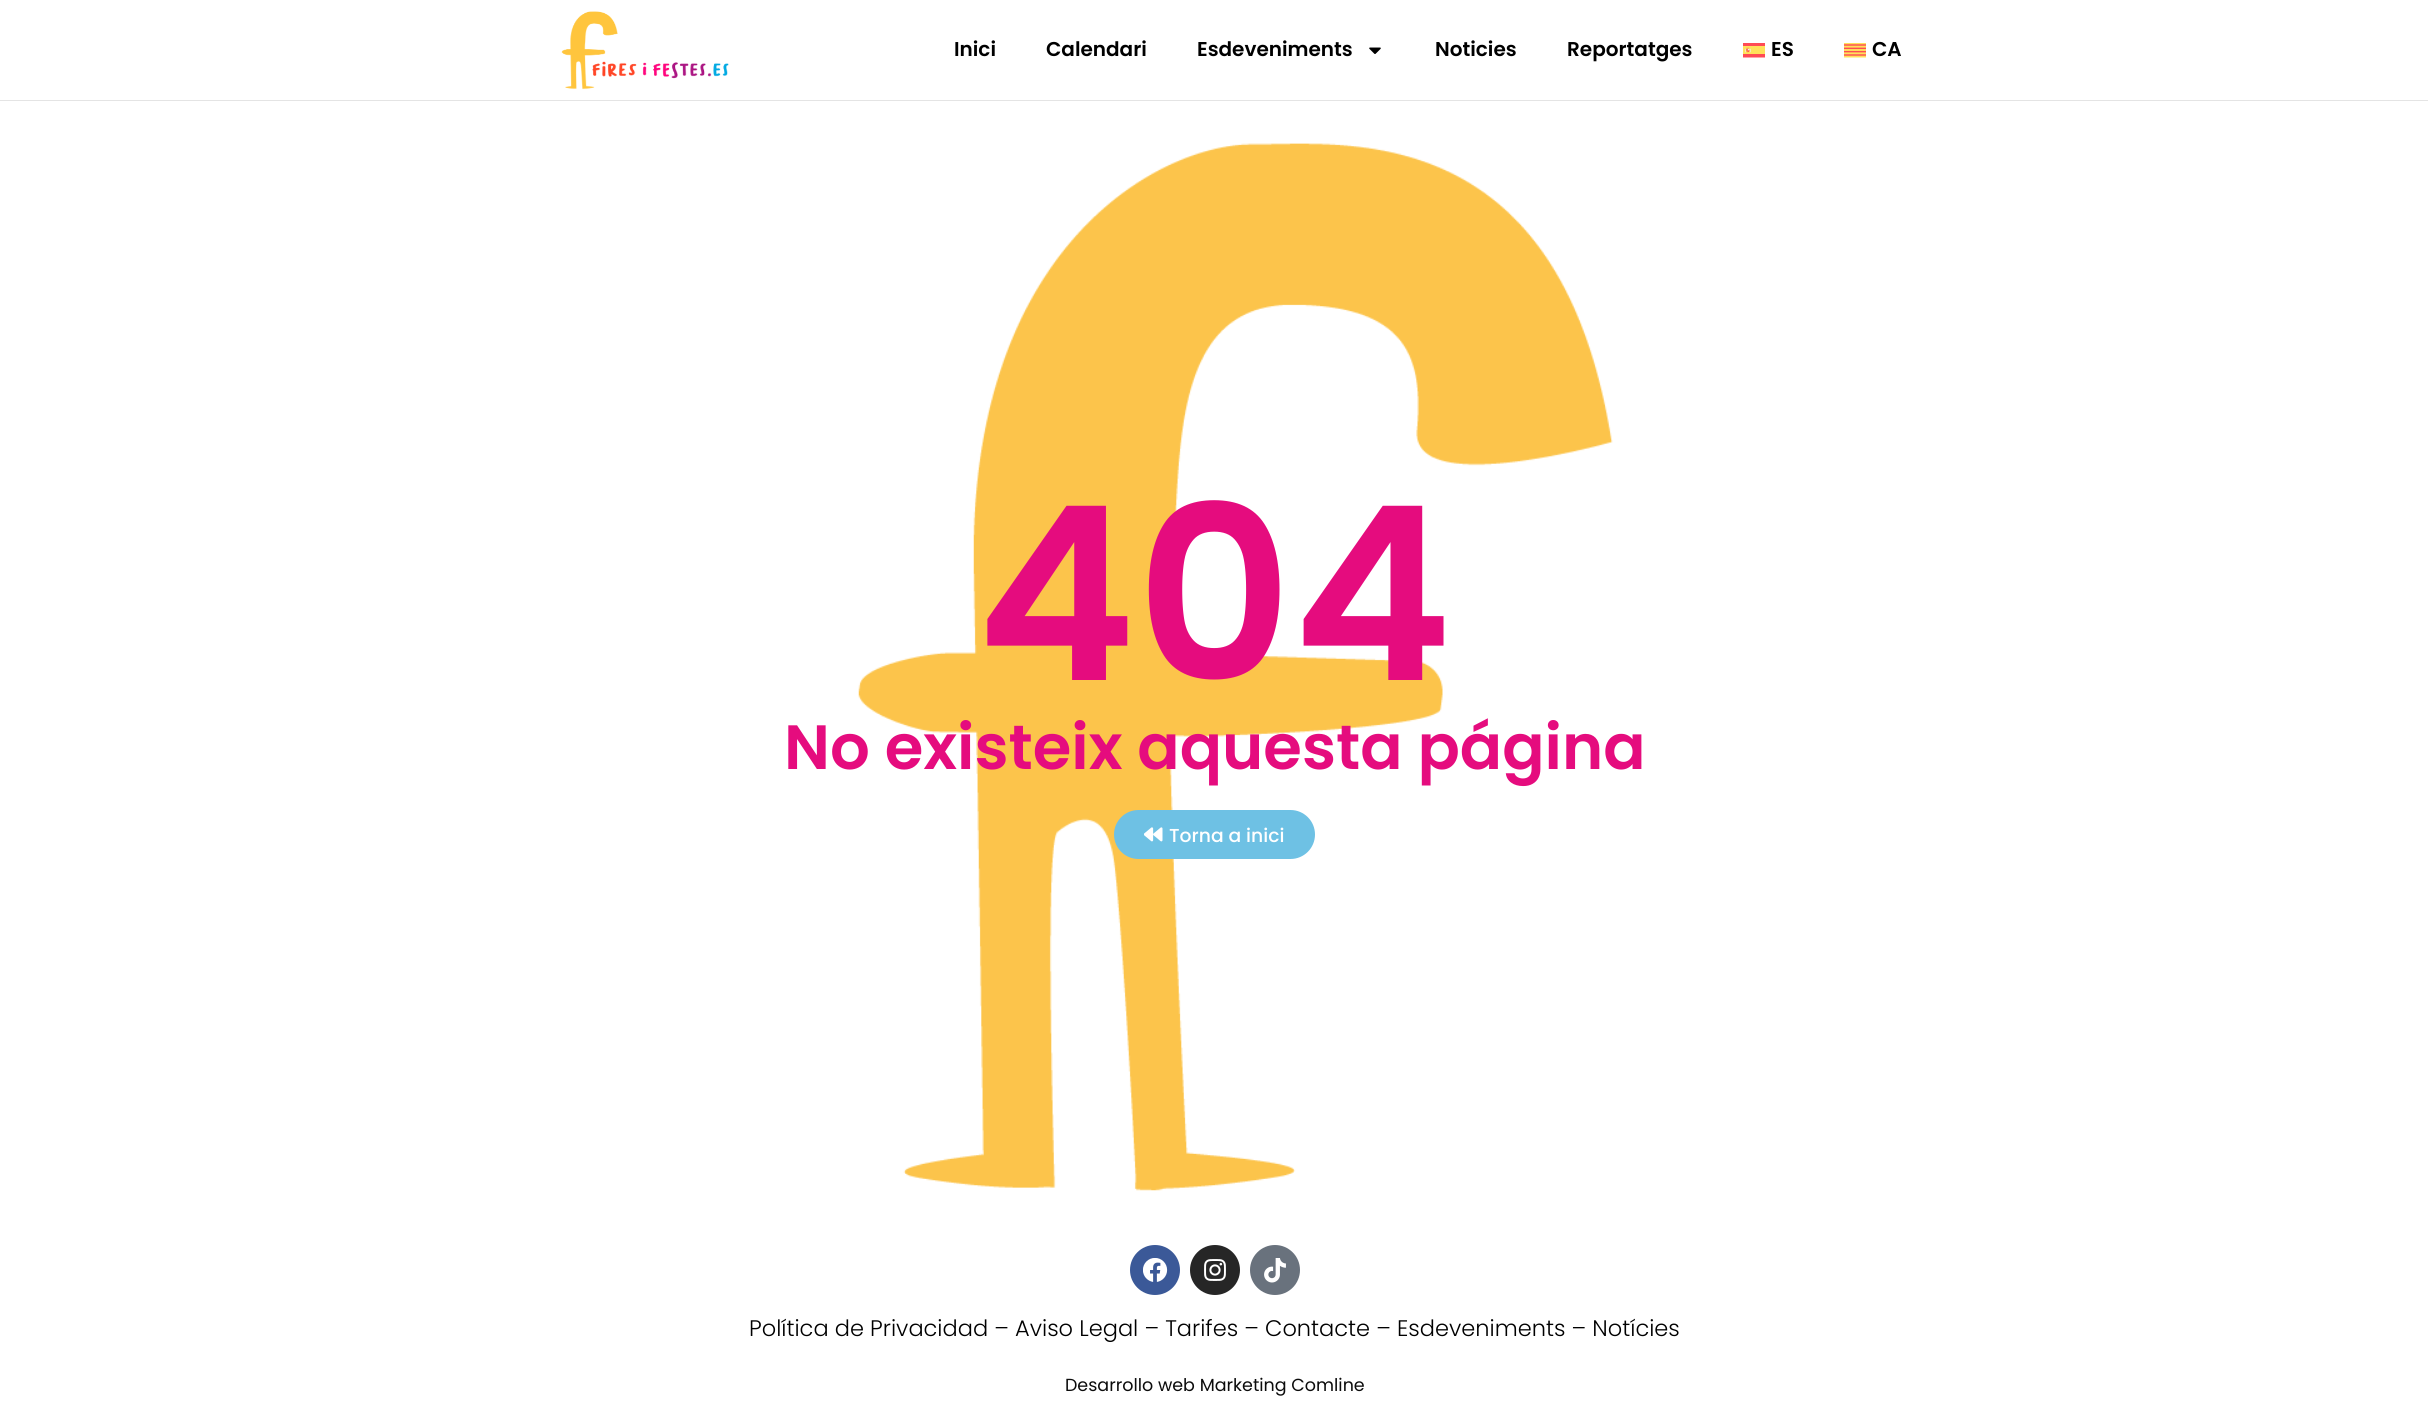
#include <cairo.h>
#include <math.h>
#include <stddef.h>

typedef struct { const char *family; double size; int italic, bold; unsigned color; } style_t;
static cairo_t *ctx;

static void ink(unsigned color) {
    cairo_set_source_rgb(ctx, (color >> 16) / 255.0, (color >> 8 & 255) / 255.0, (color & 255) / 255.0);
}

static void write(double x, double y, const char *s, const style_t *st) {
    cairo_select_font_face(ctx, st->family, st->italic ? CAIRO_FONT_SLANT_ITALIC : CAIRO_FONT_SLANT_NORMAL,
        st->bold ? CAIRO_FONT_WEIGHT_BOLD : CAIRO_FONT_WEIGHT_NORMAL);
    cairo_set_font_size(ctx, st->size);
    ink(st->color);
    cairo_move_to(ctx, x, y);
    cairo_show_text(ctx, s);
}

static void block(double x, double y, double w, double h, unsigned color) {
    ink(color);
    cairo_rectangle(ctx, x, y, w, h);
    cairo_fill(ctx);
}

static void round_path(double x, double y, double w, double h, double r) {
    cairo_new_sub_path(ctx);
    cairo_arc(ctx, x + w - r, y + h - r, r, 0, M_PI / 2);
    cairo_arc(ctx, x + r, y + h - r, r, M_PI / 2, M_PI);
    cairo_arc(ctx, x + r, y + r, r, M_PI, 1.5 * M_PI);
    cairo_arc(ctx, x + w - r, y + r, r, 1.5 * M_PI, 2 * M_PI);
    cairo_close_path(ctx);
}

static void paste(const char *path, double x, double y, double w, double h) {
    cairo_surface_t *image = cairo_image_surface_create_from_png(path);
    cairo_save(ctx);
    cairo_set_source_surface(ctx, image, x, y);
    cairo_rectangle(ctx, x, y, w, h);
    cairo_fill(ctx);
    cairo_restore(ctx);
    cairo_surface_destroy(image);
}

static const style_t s1 = {"Poppins SemiBold", 20, 0, 0, 0x000000};
static const style_t s2 = {"Poppins SemiBold", 242, 0, 0, 0xe50c7e};
static const style_t s3 = {"Poppins SemiBold", 62.5, 0, 0, 0xe50c7e};
static const style_t s4 = {"Poppins Medium", 18.75, 0, 0, 0xffffff};
static const style_t s5 = {"Poppins Light", 22.5, 0, 0, 0x000000};
static const style_t s6 = {"Poppins", 17.5, 0, 0, 0x0c0c0c};

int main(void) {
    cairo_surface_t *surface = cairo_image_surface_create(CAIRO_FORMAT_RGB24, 2428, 1413);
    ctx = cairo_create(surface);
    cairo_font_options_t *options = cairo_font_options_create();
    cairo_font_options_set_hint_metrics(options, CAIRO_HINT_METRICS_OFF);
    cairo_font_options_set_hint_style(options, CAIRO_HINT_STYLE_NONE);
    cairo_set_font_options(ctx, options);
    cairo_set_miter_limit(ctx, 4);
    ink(0xffffff);
    cairo_paint(ctx);
    block(0, 100, 2428, 1, 0xe4e4e4);
    paste("pic1.png", 561, 11, 168, 79);
    write(954, 56, "Inici", &s1);
    write(1046, 56, "Calendari", &s1);
    write(1197, 56, "Esdeveniments", &s1);
    paste("pic2.png", 1369, 47, 12, 7);
    write(1435, 56, "Noticies", &s1);
    write(1567, 56, "Reportatges", &s1);
    paste("pic3.png", 1743, 43, 22, 15);
    write(1771, 56, "ES", &s1);
    paste("pic4.png", 1844, 43, 22, 15);
    write(1872, 56, "CA", &s1);
    paste("pic5.png", 858, 143, 755, 1048);
    write(976, 680, "404", &s2);
    write(784, 769, "No existeix aquesta página", &s3);
    ink(0x6ec1e4);
    round_path(1114, 810, 201, 49, 24.5);
    cairo_fill(ctx);
    paste("pic6.png", 1144, 827, 19, 15);
    write(1169, 842, "Torna a inici", &s4);
    ink(0x3b5998);
    cairo_new_path(ctx);
    cairo_arc(ctx, 1155, 1270, 25, 0, 2 * M_PI);
    cairo_fill(ctx);
    paste("pic7.png", 1143, 1258, 25, 24);
    ink(0x262626);
    cairo_arc(ctx, 1215, 1270, 25, 0, 2 * M_PI);
    cairo_fill(ctx);
    paste("pic8.png", 1204, 1259, 22, 22);
    ink(0x69727d);
    cairo_arc(ctx, 1275, 1270, 25, 0, 2 * M_PI);
    cairo_fill(ctx);
    paste("pic9.png", 1264, 1258, 22, 25);
    write(749, 1336, "Política de Privacidad – Aviso Legal – Tarifes – Contacte – Esdeveniments – Notícies", &s5);
    write(1065, 1391, "Desarrollo web Marketing Comline", &s6);
    cairo_surface_write_to_png(surface, "screenshot.png");
    cairo_font_options_destroy(options);
    cairo_destroy(ctx);
    cairo_surface_destroy(surface);
    return 0;
}
